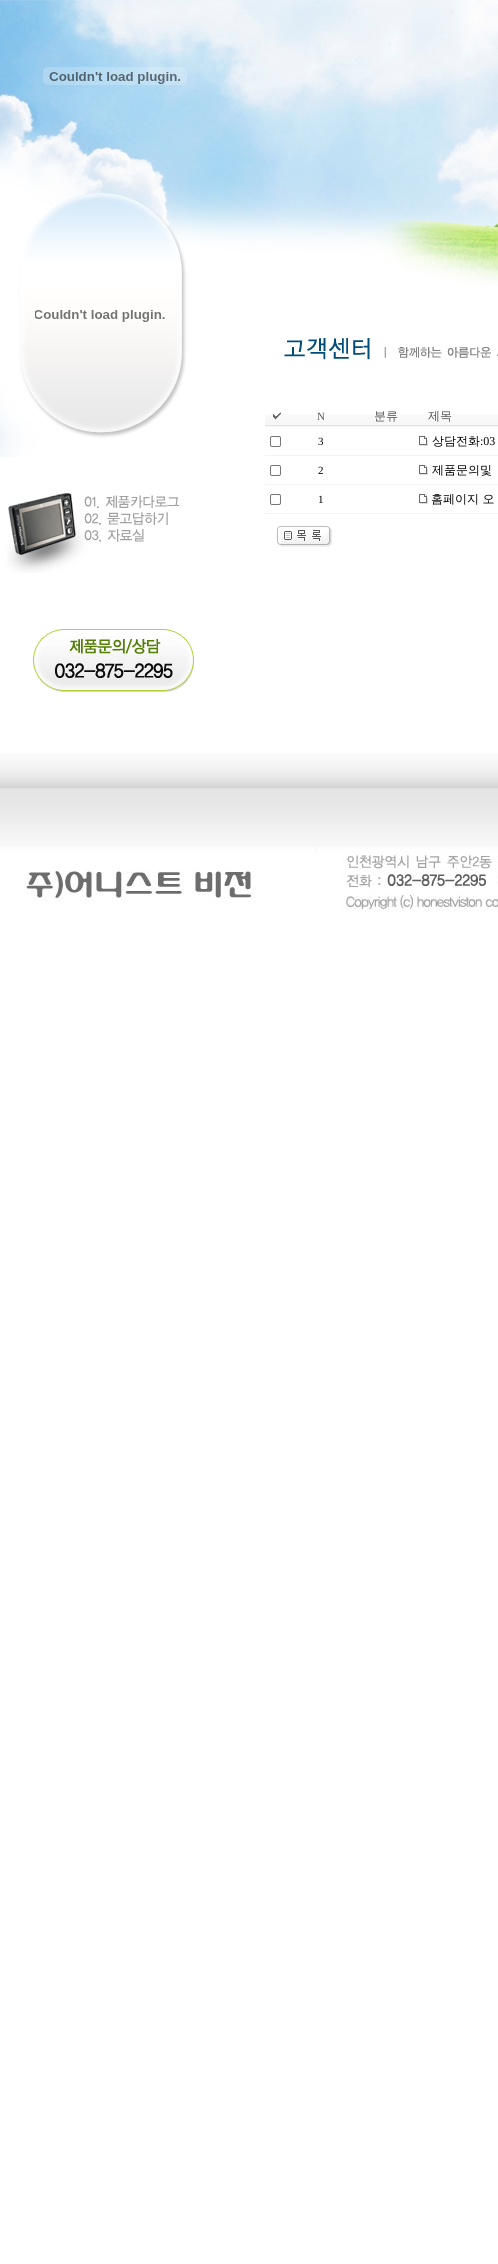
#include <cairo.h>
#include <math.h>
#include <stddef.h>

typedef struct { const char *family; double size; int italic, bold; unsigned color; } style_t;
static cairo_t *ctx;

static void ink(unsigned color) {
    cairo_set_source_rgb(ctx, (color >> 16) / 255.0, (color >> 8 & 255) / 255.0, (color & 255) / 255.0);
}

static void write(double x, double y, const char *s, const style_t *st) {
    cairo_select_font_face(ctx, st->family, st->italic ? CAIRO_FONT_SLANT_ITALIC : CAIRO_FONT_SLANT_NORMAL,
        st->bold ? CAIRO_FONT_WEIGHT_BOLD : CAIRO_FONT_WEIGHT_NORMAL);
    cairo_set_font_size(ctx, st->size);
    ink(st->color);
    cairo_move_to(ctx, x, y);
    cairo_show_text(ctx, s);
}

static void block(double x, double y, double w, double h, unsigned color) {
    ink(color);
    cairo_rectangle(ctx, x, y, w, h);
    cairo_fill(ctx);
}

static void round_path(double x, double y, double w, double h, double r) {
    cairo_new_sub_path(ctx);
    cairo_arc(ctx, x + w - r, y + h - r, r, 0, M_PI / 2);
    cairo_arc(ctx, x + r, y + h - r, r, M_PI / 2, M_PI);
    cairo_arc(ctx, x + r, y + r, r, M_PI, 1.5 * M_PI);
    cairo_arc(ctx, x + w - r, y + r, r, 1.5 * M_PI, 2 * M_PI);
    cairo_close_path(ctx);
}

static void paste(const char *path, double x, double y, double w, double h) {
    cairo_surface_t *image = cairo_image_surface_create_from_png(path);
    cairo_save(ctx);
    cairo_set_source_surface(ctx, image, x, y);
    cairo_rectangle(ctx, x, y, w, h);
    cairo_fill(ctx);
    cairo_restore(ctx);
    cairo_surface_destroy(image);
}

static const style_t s1 = {"Liberation Serif", 11, 0, 0, 0x555555};
static const style_t s2 = {"WenQuanYi Zen Hei Medium", 12, 0, 0, 0x555555};
static const style_t s3 = {"Liberation Serif", 11, 0, 0, 0x000000};
static const style_t s4 = {"WenQuanYi Zen Hei Medium", 12, 0, 0, 0x000000};
static const style_t s5 = {"Liberation Serif", 12, 0, 0, 0x000000};

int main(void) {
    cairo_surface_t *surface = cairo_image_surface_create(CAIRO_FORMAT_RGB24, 498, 2264);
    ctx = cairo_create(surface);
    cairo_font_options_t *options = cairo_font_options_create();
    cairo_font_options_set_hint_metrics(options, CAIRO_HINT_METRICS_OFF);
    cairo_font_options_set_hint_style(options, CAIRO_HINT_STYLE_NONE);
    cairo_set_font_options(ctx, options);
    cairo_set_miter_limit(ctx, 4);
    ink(0xffffff);
    cairo_paint(ctx);
    paste("pic1.png", 0, 0, 230, 457);
    paste("pic2.png", 43, 67, 144, 18);
    paste("pic3.png", 35, 310, 130, 12);
    paste("pic4.png", 7, 493, 173, 80);
    paste("pic5.png", 33, 629, 161, 63);
    paste("pic6.png", 230, 0, 268, 286);
    paste("pic7.png", 284, 338, 214, 22);
    paste("pic8.png", 265, 414, 20, 13);
    paste("pic9.png", 273, 412, 8, 8);
    paste("pic10.png", 285, 414, 72, 13);
    write(317, 420, "N", &s1);
    paste("pic11.png", 357, 414, 59, 13);
    write(374, 420, "분류", &s2);
    paste("pic12.png", 416, 414, 82, 13);
    write(428, 420, "제목", &s2);
    round_path(270.5, 436.5, 10, 10, 1.5);
    ink(0x767676);
    cairo_set_line_width(ctx, 1);
    cairo_stroke(ctx);
    write(318, 445, "3", &s3);
    paste("pic13.png", 419, 436, 9, 10);
    write(432, 445, "상담전화", &s4);
    write(480, 445, ":03", &s5);
    block(265, 455, 233, 1, 0xf4f3f1);
    round_path(270.5, 465.5, 10, 10, 1.5);
    ink(0x767676);
    cairo_stroke(ctx);
    write(318, 474, "2", &s3);
    paste("pic13.png", 419, 465, 9, 10);
    write(432, 474, "제품문의및", &s4);
    block(265, 484, 233, 1, 0xf4f3f1);
    round_path(270.5, 494.5, 10, 10, 1.5);
    ink(0x767676);
    cairo_stroke(ctx);
    write(318, 503, "1", &s3);
    paste("pic13.png", 419, 494, 9, 10);
    write(431, 503, "홈페이지 오", &s4);
    block(265, 513, 233, 1, 0xf4f3f1);
    paste("pic14.png", 277, 526, 55, 21);
    paste("pic15.png", 0, 753, 498, 100);
    paste("pic16.png", 0, 847, 315, 56);
    paste("pic17.png", 318, 847, 180, 64);
    cairo_surface_write_to_png(surface, "screenshot.png");
    cairo_font_options_destroy(options);
    cairo_destroy(ctx);
    cairo_surface_destroy(surface);
    return 0;
}
